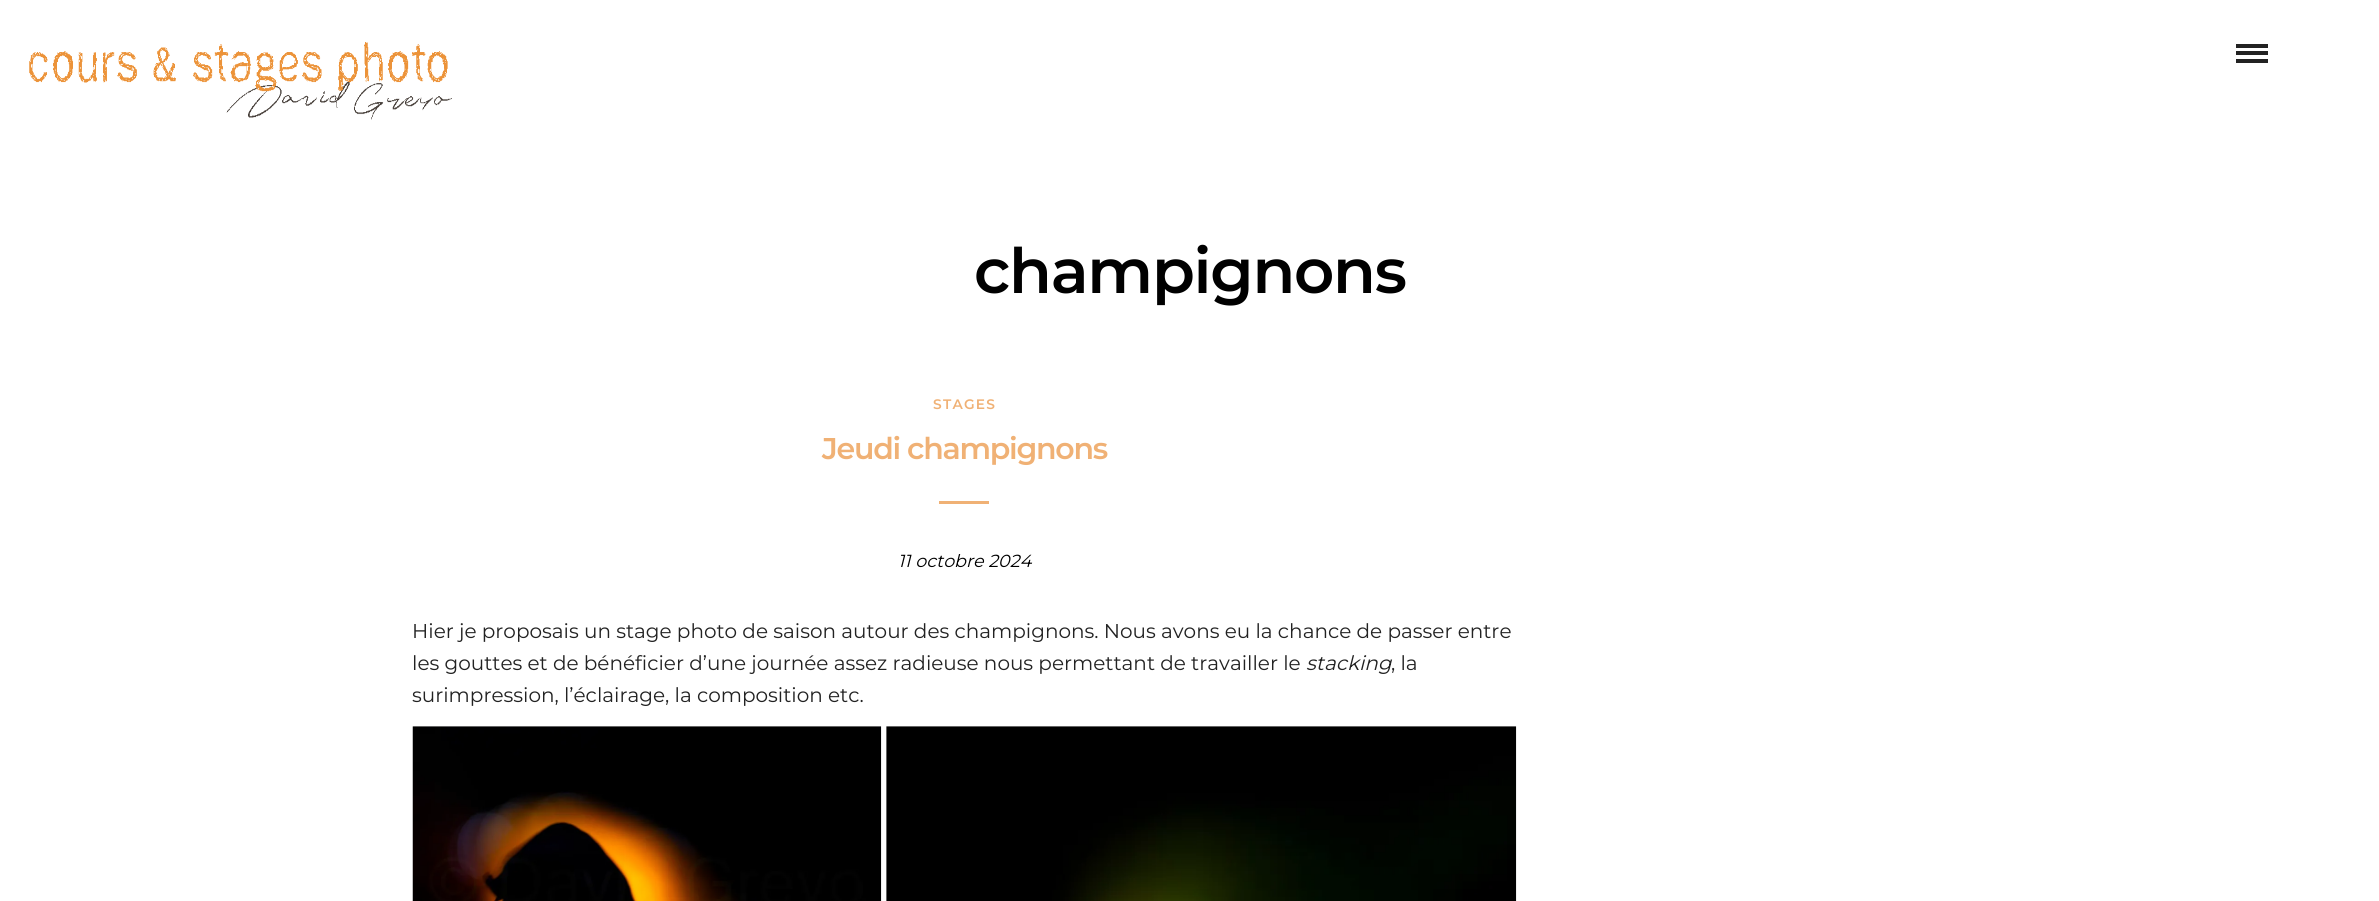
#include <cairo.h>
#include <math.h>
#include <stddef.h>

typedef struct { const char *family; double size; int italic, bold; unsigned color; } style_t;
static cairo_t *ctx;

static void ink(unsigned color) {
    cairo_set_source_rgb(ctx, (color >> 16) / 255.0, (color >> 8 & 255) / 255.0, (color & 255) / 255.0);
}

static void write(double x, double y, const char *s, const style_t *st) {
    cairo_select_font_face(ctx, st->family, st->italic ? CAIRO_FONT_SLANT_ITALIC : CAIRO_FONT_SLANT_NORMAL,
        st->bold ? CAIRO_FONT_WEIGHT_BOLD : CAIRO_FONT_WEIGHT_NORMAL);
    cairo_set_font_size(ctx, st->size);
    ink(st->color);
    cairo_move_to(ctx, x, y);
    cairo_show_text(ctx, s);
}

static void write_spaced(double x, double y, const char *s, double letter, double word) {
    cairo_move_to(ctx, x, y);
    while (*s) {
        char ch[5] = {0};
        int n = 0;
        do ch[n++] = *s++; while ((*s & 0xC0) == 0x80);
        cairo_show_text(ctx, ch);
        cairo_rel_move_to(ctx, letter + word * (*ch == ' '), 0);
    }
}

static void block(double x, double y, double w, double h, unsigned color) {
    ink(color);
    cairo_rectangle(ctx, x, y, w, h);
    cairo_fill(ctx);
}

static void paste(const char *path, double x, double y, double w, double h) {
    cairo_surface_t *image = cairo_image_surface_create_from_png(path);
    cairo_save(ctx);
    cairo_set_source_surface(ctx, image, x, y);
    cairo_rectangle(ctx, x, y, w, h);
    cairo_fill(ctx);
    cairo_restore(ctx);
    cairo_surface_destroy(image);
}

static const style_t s1 = {"Montserrat", 17.5, 1, 0, 0x000000};
static const style_t s2 = {"Montserrat", 20, 0, 0, 0x222222};
static const style_t s3 = {"Montserrat", 20, 1, 0, 0x222222};

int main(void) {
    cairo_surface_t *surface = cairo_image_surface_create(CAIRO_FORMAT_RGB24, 2379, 901);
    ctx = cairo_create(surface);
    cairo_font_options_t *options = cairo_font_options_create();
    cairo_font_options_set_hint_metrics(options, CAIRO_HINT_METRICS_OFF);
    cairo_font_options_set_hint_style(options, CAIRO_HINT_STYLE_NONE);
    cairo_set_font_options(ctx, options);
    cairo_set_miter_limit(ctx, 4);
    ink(0xffffff);
    cairo_paint(ctx);
    paste("pic1.png", 29, 42, 423, 78);
    block(2236, 44, 32, 4, 0x222222);
    block(2236, 51, 32, 4, 0x222222);
    block(2236, 59, 32, 4, 0x222222);
    cairo_select_font_face(ctx, "Montserrat SemiBold", CAIRO_FONT_SLANT_NORMAL, CAIRO_FONT_WEIGHT_NORMAL);
    cairo_set_font_size(ctx, 62.5);
    ink(0x000000);
    write_spaced(974, 293, "champignons", -1.25, 0);
    cairo_set_font_size(ctx, 13.75);
    ink(0xf0b175);
    write_spaced(933, 409, "STAGES", 1.25, 0);
    cairo_set_font_size(ctx, 30);
    write_spaced(822, 459, "Jeudi champignons", -1.25, 0);
    block(939, 501, 50, 3, 0xf0b175);
    write(898, 567, "11 octobre 2024", &s1);
    write(412, 638, "Hier je proposais un stage photo de saison autour des champignons. Nous avons eu la chance de passer entre", &s2);
    write(412, 670, "les gouttes et de bénéficier d’une journée assez radieuse nous permettant de travailler le", &s2);
    write(1306, 670, "stacking", &s3);
    write(1391, 670, ", la", &s2);
    write(412, 702, "surimpression, l’éclairage, la composition etc.", &s2);
    block(413, 726, 468, 1, 0xe6e6e6);
    paste("pic2.png", 412, 726, 470, 175);
    block(886, 726, 630, 175, 0xe6e6e6);
    paste("pic3.png", 886, 726, 631, 175);
    cairo_surface_write_to_png(surface, "screenshot.png");
    cairo_font_options_destroy(options);
    cairo_destroy(ctx);
    cairo_surface_destroy(surface);
    return 0;
}
